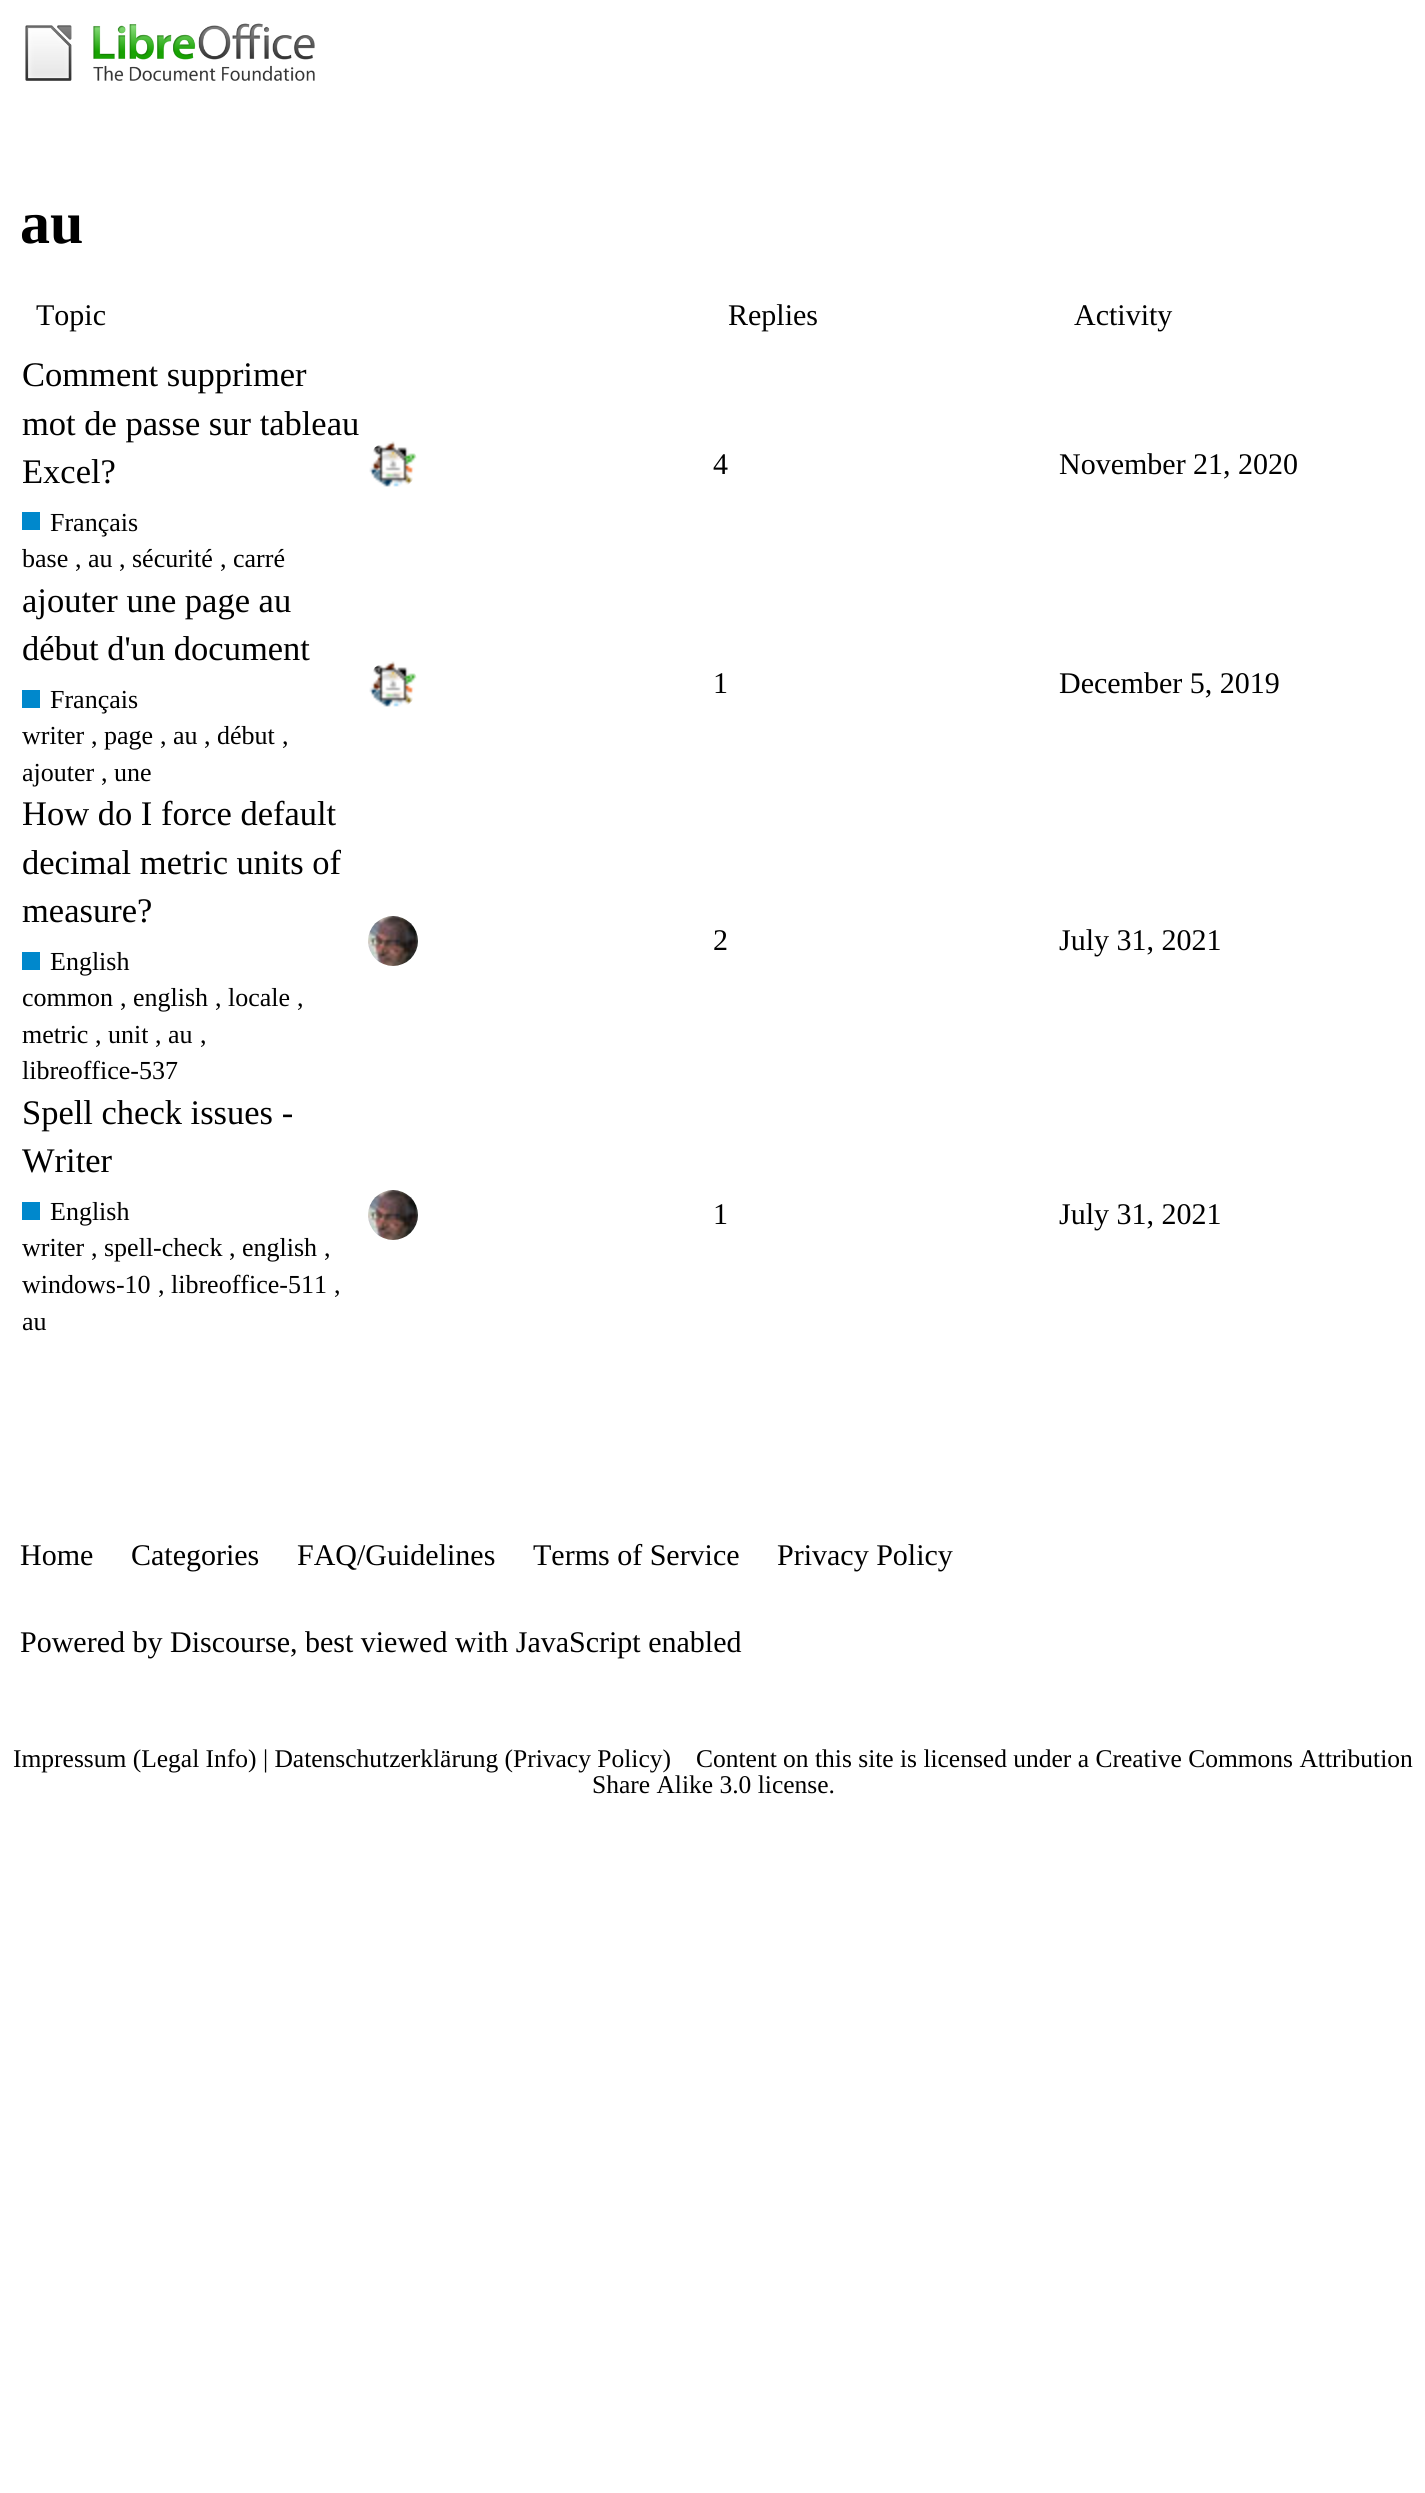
#include <cairo.h>
#include <math.h>
#include <stddef.h>

typedef struct { const char *family; double size; int italic, bold; unsigned color; } style_t;
static cairo_t *ctx;

static void ink(unsigned color) {
    cairo_set_source_rgb(ctx, (color >> 16) / 255.0, (color >> 8 & 255) / 255.0, (color & 255) / 255.0);
}

static void write(double x, double y, const char *s, const style_t *st) {
    cairo_select_font_face(ctx, st->family, st->italic ? CAIRO_FONT_SLANT_ITALIC : CAIRO_FONT_SLANT_NORMAL,
        st->bold ? CAIRO_FONT_WEIGHT_BOLD : CAIRO_FONT_WEIGHT_NORMAL);
    cairo_set_font_size(ctx, st->size);
    ink(st->color);
    cairo_move_to(ctx, x, y);
    cairo_show_text(ctx, s);
}

static void block(double x, double y, double w, double h, unsigned color) {
    ink(color);
    cairo_rectangle(ctx, x, y, w, h);
    cairo_fill(ctx);
}

static void paste(const char *path, double x, double y, double w, double h) {
    cairo_surface_t *image = cairo_image_surface_create_from_png(path);
    cairo_save(ctx);
    cairo_set_source_surface(ctx, image, x, y);
    cairo_rectangle(ctx, x, y, w, h);
    cairo_fill(ctx);
    cairo_restore(ctx);
    cairo_surface_destroy(image);
}

static const style_t s1 = {"Liberation Serif", 60, 0, 1, 0x000000};
static const style_t s2 = {"Liberation Serif", 30, 0, 0, 0x000000};
static const style_t s3 = {"Liberation Serif", 34.5, 0, 0, 0x000000};
static const style_t s4 = {"Liberation Serif", 26, 0, 0, 0x000000};
static const style_t s5 = {"Liberation Serif", 25.5, 0, 0, 0x000000};

int main(void) {
    cairo_surface_t *surface = cairo_image_surface_create(CAIRO_FORMAT_RGB24, 1425, 2493);
    ctx = cairo_create(surface);
    cairo_font_options_t *options = cairo_font_options_create();
    cairo_font_options_set_hint_metrics(options, CAIRO_HINT_METRICS_OFF);
    cairo_font_options_set_hint_style(options, CAIRO_HINT_STYLE_NONE);
    cairo_set_font_options(ctx, options);
    cairo_set_miter_limit(ctx, 4);
    ink(0xffffff);
    cairo_paint(ctx);
    paste("pic1.png", 25, 23, 290, 58);
    write(20, 243, "au", &s1);
    write(36, 325, "Topic", &s2);
    write(728, 325, "Replies", &s2);
    write(1074, 325, "Activity", &s2);
    write(22, 386, "Comment supprimer", &s3);
    write(22, 435, "mot de passe sur tableau", &s3);
    write(22, 483, "Excel?", &s3);
    block(22, 512, 18, 18, 0x0088cc);
    write(50, 531, "Français", &s4);
    write(22, 567, "base", &s4);
    write(75, 567, ", au", &s4);
    write(119, 567, ", sécurité", &s4);
    write(220, 567, ", carré", &s4);
    paste("pic2.png", 369, 441, 48, 46);
    write(713, 474, "4", &s2);
    write(1059, 474, "November 21, 2020", &s2);
    write(22, 612, "ajouter une page au", &s3);
    write(22, 660, "début d'un document", &s3);
    block(22, 690, 18, 18, 0x0088cc);
    write(50, 708, "Français", &s4);
    cairo_save(ctx);
    cairo_rectangle(ctx, 22, 718, 62, 36);
    cairo_clip(ctx);
    write(22, 744, "writer", &s4);
    cairo_restore(ctx);
    write(91, 744, ", page", &s4);
    write(160, 744, ", au", &s4);
    write(204, 744, ", début", &s4);
    write(282, 744, ",", &s4);
    cairo_save(ctx);
    cairo_rectangle(ctx, 22, 754, 72, 38);
    cairo_clip(ctx);
    write(22, 781, "ajouter", &s4);
    cairo_restore(ctx);
    write(101, 781, ", une", &s4);
    paste("pic2.png", 369, 661, 48, 46);
    write(713, 693, "1", &s2);
    write(1059, 693, "December 5, 2019", &s2);
    write(22, 825, "How do I force default", &s3);
    write(22, 874, "decimal metric units of", &s3);
    write(22, 922, "measure?", &s3);
    block(22, 952, 18, 18, 0x0088cc);
    write(50, 970, "English", &s4);
    write(22, 1006, "common", &s4);
    write(120, 1006, ", english", &s4);
    write(215, 1006, ", locale", &s4);
    write(297, 1006, ",", &s4);
    write(22, 1043, "metric", &s4);
    write(95, 1043, ",", &s4);
    cairo_save(ctx);
    cairo_rectangle(ctx, 108, 1016, 40, 38);
    cairo_clip(ctx);
    write(108, 1043, "unit", &s4);
    cairo_restore(ctx);
    write(155, 1043, ", au", &s4);
    write(200, 1043, ",", &s4);
    write(22, 1079, "libreoffice-537", &s4);
    paste("pic3.png", 368, 916, 50, 50);
    write(713, 950, "2", &s2);
    write(1059, 950, "July 31, 2021", &s2);
    write(22, 1124, "Spell check issues -", &s3);
    write(22, 1172, "Writer", &s3);
    block(22, 1202, 18, 18, 0x0088cc);
    write(50, 1220, "English", &s4);
    cairo_save(ctx);
    cairo_rectangle(ctx, 22, 1230, 62, 36);
    cairo_clip(ctx);
    write(22, 1256, "writer", &s4);
    cairo_restore(ctx);
    write(91, 1256, ", spell-check", &s4);
    write(229, 1256, ", english", &s4);
    write(324, 1256, ",", &s4);
    write(22, 1293, "windows-10", &s4);
    write(158, 1293, ", libreoffice-511", &s4);
    write(334, 1293, ",", &s4);
    write(22, 1330, "au", &s4);
    paste("pic3.png", 368, 1190, 50, 50);
    write(713, 1224, "1", &s2);
    write(1059, 1224, "July 31, 2021", &s2);
    write(20, 1565, "Home", &s2);
    write(131, 1565, "Categories", &s2);
    write(297, 1565, "FAQ/Guidelines", &s2);
    write(533, 1565, "Terms of Service", &s2);
    write(777, 1565, "Privacy Policy", &s2);
    write(20, 1652, "Powered by Discourse, best viewed with JavaScript enabled", &s2);
    write(13, 1767, "Impressum (Legal Info) | Datenschutzerklärung (Privacy Policy)", &s5);
    write(696, 1767, "Content on this site is licensed under a Creative Commons Attribution", &s5);
    write(592, 1793, "Share Alike 3.0 license.", &s5);
    cairo_surface_write_to_png(surface, "screenshot.png");
    cairo_font_options_destroy(options);
    cairo_destroy(ctx);
    cairo_surface_destroy(surface);
    return 0;
}
